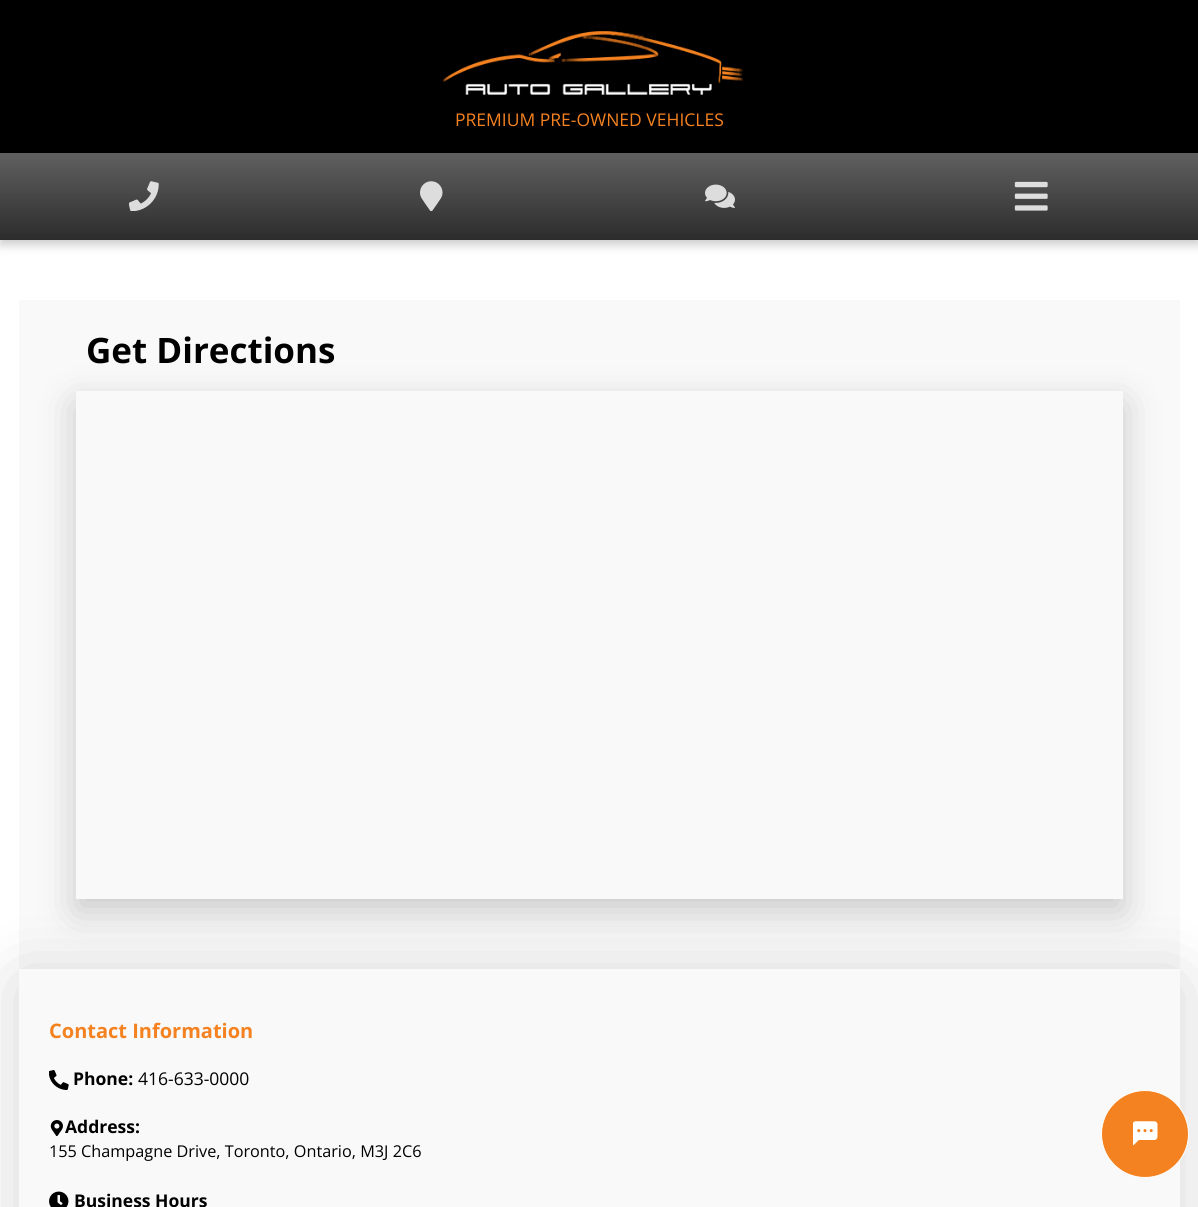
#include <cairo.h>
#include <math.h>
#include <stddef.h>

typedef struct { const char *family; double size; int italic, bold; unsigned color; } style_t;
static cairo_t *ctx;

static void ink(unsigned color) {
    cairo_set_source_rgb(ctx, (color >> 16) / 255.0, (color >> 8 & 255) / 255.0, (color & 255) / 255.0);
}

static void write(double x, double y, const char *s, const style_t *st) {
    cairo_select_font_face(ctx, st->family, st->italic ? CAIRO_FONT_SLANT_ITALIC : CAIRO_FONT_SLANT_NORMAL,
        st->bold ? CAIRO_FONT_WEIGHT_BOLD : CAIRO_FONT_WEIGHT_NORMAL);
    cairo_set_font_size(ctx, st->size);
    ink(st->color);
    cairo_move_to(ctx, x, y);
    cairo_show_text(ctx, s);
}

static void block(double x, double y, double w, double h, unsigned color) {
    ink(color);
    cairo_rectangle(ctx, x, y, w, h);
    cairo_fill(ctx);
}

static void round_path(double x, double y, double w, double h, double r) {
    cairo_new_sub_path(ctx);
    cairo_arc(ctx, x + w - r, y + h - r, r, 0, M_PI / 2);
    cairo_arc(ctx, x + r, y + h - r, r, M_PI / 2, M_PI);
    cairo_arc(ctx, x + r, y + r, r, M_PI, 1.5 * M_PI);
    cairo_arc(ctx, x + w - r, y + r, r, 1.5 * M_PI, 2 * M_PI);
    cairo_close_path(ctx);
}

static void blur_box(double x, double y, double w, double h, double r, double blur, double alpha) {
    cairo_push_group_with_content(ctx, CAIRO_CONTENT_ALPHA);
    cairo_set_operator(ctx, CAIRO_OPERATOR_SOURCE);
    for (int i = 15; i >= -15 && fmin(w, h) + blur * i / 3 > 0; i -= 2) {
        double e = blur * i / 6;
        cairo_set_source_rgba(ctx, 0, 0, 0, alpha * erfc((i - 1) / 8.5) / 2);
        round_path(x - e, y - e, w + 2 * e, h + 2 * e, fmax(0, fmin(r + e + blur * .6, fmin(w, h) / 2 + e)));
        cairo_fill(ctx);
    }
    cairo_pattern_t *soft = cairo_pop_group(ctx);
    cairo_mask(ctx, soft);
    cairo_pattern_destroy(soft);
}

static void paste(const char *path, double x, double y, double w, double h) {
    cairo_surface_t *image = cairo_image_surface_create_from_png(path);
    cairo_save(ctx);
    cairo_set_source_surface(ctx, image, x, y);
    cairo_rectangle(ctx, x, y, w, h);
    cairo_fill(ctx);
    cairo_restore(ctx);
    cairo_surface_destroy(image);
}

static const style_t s1 = {"Open Sans", 17.5, 0, 0, 0xf58220};
static const style_t s2 = {"Open Sans", 35, 0, 1, 0x000000};
static const style_t s3 = {"Open Sans", 20, 0, 1, 0xf58220};
static const style_t s4 = {"Open Sans", 17.5, 0, 1, 0x000000};
static const style_t s5 = {"Open Sans", 17.5, 0, 0, 0x000000};
static const style_t s6 = {"Open Sans", 16.25, 0, 0, 0x000000};

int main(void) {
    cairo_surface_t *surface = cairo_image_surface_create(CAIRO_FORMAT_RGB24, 1198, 1207);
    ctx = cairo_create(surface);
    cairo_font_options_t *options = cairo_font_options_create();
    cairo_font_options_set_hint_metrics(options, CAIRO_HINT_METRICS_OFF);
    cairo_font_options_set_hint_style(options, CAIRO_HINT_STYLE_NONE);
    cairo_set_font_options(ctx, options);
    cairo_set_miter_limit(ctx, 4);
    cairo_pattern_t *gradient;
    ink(0xffffff);
    cairo_paint(ctx);
    ink(0x000000);
    blur_box(0, 5, 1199, 240, 0, 5, 0.2);
    block(0, 0, 1198, 153, 0x000000);
    paste("pic1.png", 443, 31, 300, 64);
    write(455, 126, "PREMIUM PRE-OWNED VEHICLES", &s1);
    gradient = cairo_pattern_create_linear(599, 152, 599, 240);
    cairo_pattern_add_color_stop_rgba(gradient, 0, 0.38, 0.38, 0.38, 1);
    cairo_pattern_add_color_stop_rgba(gradient, 1, 0.173, 0.173, 0.173, 1);
    cairo_set_source(ctx, gradient);
    cairo_pattern_destroy(gradient);
    cairo_rectangle(ctx, 0, 153, 1198, 87);
    cairo_fill(ctx);
    paste("pic2.png", 129, 181, 30, 30);
    paste("pic3.png", 420, 181, 23, 30);
    paste("pic4.png", 705, 184, 30, 24);
    paste("pic5.png", 1014, 181, 34, 30);
    block(19, 300, 1161, 669, 0xf9f9f9);
    cairo_save(ctx);
    cairo_set_fill_rule(ctx, CAIRO_FILL_RULE_EVEN_ODD);
    cairo_new_path(ctx);
    cairo_move_to(ctx, 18, 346);
    cairo_line_to(ctx, 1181, 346);
    cairo_line_to(ctx, 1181, 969);
    cairo_line_to(ctx, 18, 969);
    cairo_close_path(ctx);
    cairo_move_to(ctx, 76, 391);
    cairo_line_to(ctx, 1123, 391);
    cairo_line_to(ctx, 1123, 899);
    cairo_line_to(ctx, 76, 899);
    cairo_close_path(ctx);
    cairo_clip(ctx);
    ink(0x000000);
    blur_box(76, 404, 1047, 507, 0, 19, 0.2);
    cairo_restore(ctx);
    write(86, 363, "Get Directions", &s2);
    ink(0x000000);
    blur_box(19, 981, 1161, 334, 0, 36, 0.16);
    block(19, 969, 1161, 238, 0xf9f9f9);
    write(49, 1038, "Contact Information", &s3);
    paste("pic6.png", 49, 1070, 20, 20);
    write(73, 1085, "Phone:", &s4);
    write(138, 1085, "416-633-0000", &s5);
    paste("pic7.png", 50, 1120, 13, 16);
    write(65, 1133, "Address:", &s4);
    write(49, 1157, "155 Champagne Drive, Toronto, Ontario, M3J 2C6", &s6);
    paste("pic8.png", 49, 1191, 20, 16);
    write(74, 1207, "Business Hours", &s4);
    ink(0xf58220);
    cairo_new_path(ctx);
    cairo_arc(ctx, 1145, 1134, 43.5, 0, 2 * M_PI);
    cairo_fill_preserve(ctx);
    ink(0xffffff);
    cairo_set_line_width(ctx, 1);
    cairo_stroke(ctx);
    paste("pic9.png", 1133, 1121, 25, 25);
    cairo_surface_write_to_png(surface, "screenshot.png");
    cairo_font_options_destroy(options);
    cairo_destroy(ctx);
    cairo_surface_destroy(surface);
    return 0;
}
